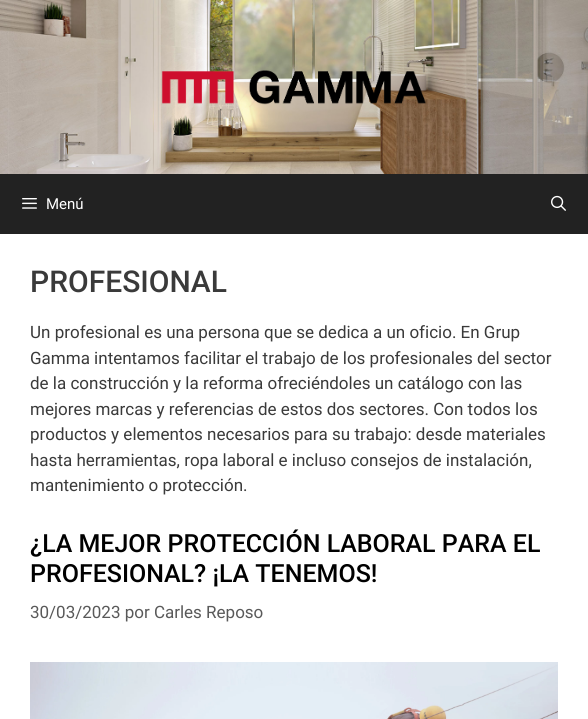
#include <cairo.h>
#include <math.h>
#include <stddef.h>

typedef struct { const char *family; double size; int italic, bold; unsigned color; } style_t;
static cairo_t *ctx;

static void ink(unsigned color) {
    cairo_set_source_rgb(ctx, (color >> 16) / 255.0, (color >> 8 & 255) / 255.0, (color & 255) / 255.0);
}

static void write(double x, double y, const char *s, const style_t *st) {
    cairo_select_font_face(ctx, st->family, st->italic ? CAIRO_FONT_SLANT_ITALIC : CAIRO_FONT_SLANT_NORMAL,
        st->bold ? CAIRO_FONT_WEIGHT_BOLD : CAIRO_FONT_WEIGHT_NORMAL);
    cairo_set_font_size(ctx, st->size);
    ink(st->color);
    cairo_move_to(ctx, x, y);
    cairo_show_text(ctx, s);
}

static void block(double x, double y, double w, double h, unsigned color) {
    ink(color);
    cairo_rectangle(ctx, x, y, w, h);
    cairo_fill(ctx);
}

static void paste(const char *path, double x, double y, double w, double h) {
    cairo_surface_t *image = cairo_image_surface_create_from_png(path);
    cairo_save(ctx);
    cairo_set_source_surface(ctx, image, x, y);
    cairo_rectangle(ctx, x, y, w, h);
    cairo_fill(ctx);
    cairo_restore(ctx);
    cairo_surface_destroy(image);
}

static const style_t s1 = {"Roboto", 15, 0, 0, 0xffffff};
static const style_t s2 = {"Roboto Medium", 30, 0, 0, 0x3a3a3a};
static const style_t s3 = {"Roboto", 17, 0, 0, 0x3a3a3a};
static const style_t s4 = {"Roboto Medium", 25, 0, 0, 0x000000};
static const style_t s5 = {"Roboto", 17, 0, 0, 0x595959};

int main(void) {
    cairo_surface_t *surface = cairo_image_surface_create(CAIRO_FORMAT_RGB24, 588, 719);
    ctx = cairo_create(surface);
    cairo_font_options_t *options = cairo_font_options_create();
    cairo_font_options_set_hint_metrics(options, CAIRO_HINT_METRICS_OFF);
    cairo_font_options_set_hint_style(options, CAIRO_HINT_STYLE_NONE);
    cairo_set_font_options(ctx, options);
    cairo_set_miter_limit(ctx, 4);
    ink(0xffffff);
    cairo_paint(ctx);
    paste("pic1.png", 0, 0, 588, 174);
    paste("pic2.png", 161, 70, 265, 35);
    block(0, 174, 588, 60, 0x222222);
    paste("pic3.png", 22, 198, 15, 11);
    write(46, 209, "Menú", &s1);
    paste("pic4.png", 551, 195, 15, 16);
    write(30, 292, "PROFESIONAL", &s2);
    write(30, 338, "Un profesional es una persona que se dedica a un oficio. En Grup", &s3);
    write(30, 364, "Gamma intentamos facilitar el trabajo de los profesionales del sector", &s3);
    write(30, 389, "de la construcción y la reforma ofreciéndoles un catálogo con las", &s3);
    write(30, 415, "mejores marcas y referencias de estos dos sectores. Con todos los", &s3);
    write(30, 440, "productos y elementos necesarios para su trabajo: desde materiales", &s3);
    write(30, 466, "hasta herramientas, ropa laboral e incluso consejos de instalación,", &s3);
    write(30, 491, "mantenimiento o protección.", &s3);
    write(30, 552, "¿LA MEJOR PROTECCIÓN LABORAL PARA EL", &s4);
    write(30, 582, "PROFESIONAL? ¡LA TENEMOS!", &s4);
    write(30, 618, "30/03/2023 por Carles Reposo", &s5);
    paste("pic5.png", 30, 662, 528, 57);
    cairo_surface_write_to_png(surface, "screenshot.png");
    cairo_font_options_destroy(options);
    cairo_destroy(ctx);
    cairo_surface_destroy(surface);
    return 0;
}
